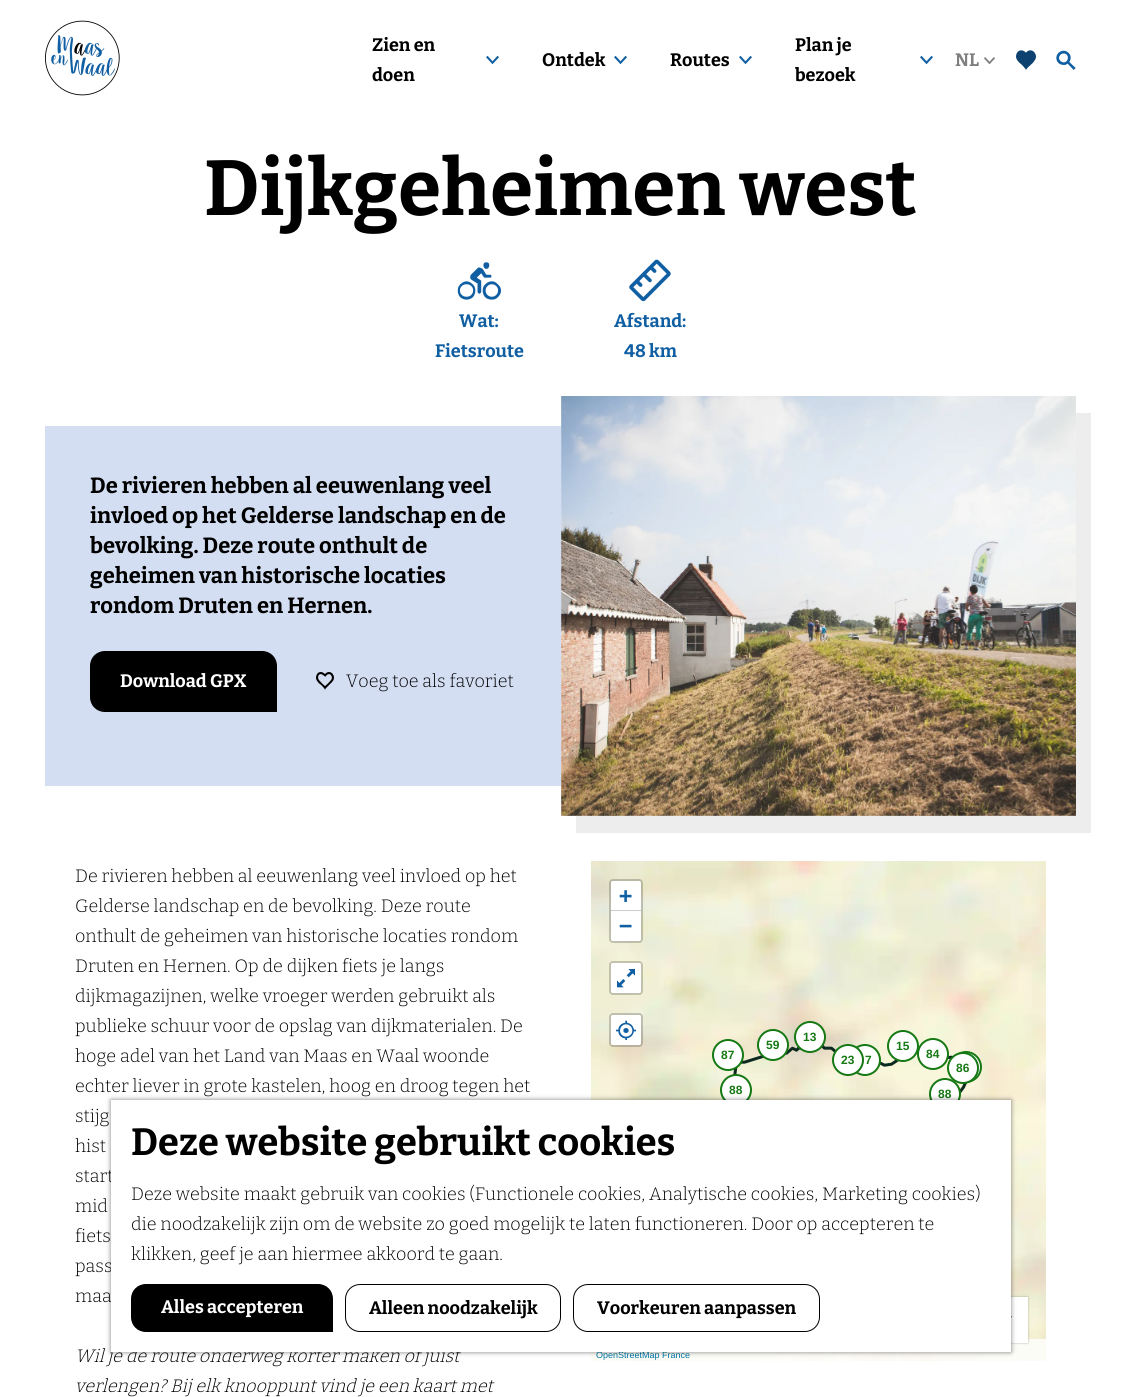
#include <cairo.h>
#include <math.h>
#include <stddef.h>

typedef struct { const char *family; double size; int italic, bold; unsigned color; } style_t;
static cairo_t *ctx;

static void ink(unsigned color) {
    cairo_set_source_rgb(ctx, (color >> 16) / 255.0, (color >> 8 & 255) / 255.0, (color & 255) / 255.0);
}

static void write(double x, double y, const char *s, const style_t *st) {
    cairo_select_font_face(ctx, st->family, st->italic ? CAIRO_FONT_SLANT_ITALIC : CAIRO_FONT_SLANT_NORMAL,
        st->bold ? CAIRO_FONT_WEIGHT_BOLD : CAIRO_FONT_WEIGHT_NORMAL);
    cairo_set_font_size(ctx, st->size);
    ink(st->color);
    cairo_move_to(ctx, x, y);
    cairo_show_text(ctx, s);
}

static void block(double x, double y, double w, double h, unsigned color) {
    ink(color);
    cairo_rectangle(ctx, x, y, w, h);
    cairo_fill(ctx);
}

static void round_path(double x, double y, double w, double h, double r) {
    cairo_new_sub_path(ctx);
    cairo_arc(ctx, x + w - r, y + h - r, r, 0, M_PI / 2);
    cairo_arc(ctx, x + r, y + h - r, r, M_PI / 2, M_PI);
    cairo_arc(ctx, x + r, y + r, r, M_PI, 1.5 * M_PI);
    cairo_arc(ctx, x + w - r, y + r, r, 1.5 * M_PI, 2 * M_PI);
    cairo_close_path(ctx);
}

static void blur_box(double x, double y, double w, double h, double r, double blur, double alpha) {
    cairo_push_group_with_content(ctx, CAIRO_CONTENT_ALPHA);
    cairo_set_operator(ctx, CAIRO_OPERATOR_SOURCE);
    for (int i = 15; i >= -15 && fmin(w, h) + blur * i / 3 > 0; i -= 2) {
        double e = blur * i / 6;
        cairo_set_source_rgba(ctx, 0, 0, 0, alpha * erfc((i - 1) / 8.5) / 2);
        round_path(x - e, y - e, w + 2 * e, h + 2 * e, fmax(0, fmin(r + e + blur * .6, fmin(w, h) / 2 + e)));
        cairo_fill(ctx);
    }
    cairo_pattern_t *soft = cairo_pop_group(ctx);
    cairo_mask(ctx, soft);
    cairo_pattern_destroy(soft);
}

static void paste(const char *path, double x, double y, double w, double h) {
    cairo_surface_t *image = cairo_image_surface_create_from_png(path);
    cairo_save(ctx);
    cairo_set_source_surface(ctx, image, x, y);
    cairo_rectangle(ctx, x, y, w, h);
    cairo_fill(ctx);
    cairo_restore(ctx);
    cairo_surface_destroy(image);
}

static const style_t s1 = {"Bitter Thin", 18, 0, 0, 0x000000};
static const style_t s2 = {"Bitter Thin", 18, 0, 0, 0x808080};
static const style_t s3 = {"Bitter Thin", 78, 0, 0, 0x000000};
static const style_t s4 = {"Bitter Thin", 18, 0, 0, 0x115fa3};
static const style_t s5 = {"Bitter Thin", 22, 0, 0, 0x000000};
static const style_t s6 = {"Bitter Thin", 18, 0, 0, 0xffffff};
static const style_t s7 = {"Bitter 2 Thin", 18, 0, 0, 0x000000};
static const style_t s8 = {"Bitter Thin", 18, 1, 0, 0x000000};
static const style_t s9 = {"DejaVu Sans Mono", 22, 0, 1, 0x115fa3};
static const style_t s10 = {"Liberation Sans", 9, 0, 0, 0x0078a8};
static const style_t s11 = {"Liberation Sans", 12, 0, 1, 0x167914};
static const style_t s12 = {"Bitter Thin", 38, 0, 0, 0x000000};

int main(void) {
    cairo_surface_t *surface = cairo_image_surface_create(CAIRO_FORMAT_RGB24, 1121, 1397);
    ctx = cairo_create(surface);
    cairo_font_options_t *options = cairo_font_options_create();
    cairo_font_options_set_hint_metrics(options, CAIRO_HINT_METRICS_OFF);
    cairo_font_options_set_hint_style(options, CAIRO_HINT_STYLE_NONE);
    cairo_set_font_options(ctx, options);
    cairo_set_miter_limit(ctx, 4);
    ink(0xffffff);
    cairo_paint(ctx);
    paste("pic1.png", 45, 20, 75, 76);
    write(372, 51, "Zien en", &s1);
    write(372, 81, "doen", &s1);
    paste("pic2.png", 486, 55, 13, 10);
    write(542, 66, "Ontdek", &s1);
    paste("pic2.png", 614, 55, 13, 10);
    write(670, 66, "Routes", &s1);
    paste("pic2.png", 739, 55, 13, 10);
    write(795, 51, "Plan je", &s1);
    write(795, 81, "bezoek", &s1);
    paste("pic2.png", 920, 55, 13, 10);
    write(955, 66, "NL", &s2);
    paste("pic3.png", 984, 57, 11, 8);
    paste("pic4.png", 1016, 50, 20, 20);
    paste("pic5.png", 1056, 50, 20, 20);
    write(204, 215, "Dijkgeheimen west", &s3);
    paste("pic6.png", 457, 262, 44, 38);
    write(459, 327, "Wat:", &s4);
    write(435, 357, "Fietsroute", &s4);
    paste("pic7.png", 629, 259, 42, 43);
    write(614, 327, "Afstand:", &s4);
    write(624, 357, "48 km", &s4);
    block(45, 426, 516, 360, 0xd3def2);
    write(90, 493, "De rivieren hebben al eeuwenlang veel", &s5);
    write(90, 523, "invloed op het Gelderse landschap en de", &s5);
    write(90, 553, "bevolking. Deze route onthult de", &s5);
    write(90, 583, "geheimen van historische locaties", &s5);
    write(90, 613, "rondom Druten en Hernen.", &s5);
    cairo_new_path(ctx);
    cairo_move_to(ctx, 105, 651);
    cairo_line_to(ctx, 262, 651);
    cairo_curve_to(ctx, 270.5, 651, 277, 657.5, 277, 666);
    cairo_line_to(ctx, 277, 712);
    cairo_line_to(ctx, 105, 712);
    cairo_curve_to(ctx, 96.5, 712, 90, 705.5, 90, 697);
    cairo_line_to(ctx, 90, 666);
    cairo_curve_to(ctx, 90, 657.5, 96.5, 651, 105, 651);
    cairo_close_path(ctx);
    cairo_fill(ctx);
    write(120, 687, "Download GPX", &s6);
    paste("pic8.png", 316, 672, 18, 18);
    write(346, 687, "Voeg toe als favoriet", &s7);
    ink(0xededed);
    cairo_new_path(ctx);
    cairo_move_to(ctx, 576, 816);
    cairo_line_to(ctx, 576, 833);
    cairo_line_to(ctx, 1091, 833);
    cairo_line_to(ctx, 1091, 413);
    cairo_line_to(ctx, 1076, 413);
    cairo_line_to(ctx, 1076, 816);
    cairo_close_path(ctx);
    cairo_fill(ctx);
    paste("pic9.png", 561, 396, 515, 420);
    write(75, 882, "De rivieren hebben al eeuwenlang veel invloed op het", &s7);
    write(75, 912, "Gelderse landschap en de bevolking. Deze route", &s7);
    write(75, 942, "onthult de geheimen van historische locaties rondom", &s7);
    write(75, 972, "Druten en Hernen. Op de dijken fiets je langs", &s7);
    write(75, 1002, "dijkmagazijnen, welke vroeger werden gebruikt als", &s7);
    write(75, 1032, "publieke schuur voor de opslag van dijkmaterialen. De", &s7);
    write(75, 1062, "hoge adel van het Land van Maas en Waal woonde", &s7);
    write(75, 1092, "echter liever in grote kastelen, hoog en droog tegen het", &s7);
    write(75, 1122, "stijg", &s7);
    write(75, 1152, "hist", &s7);
    write(75, 1182, "start", &s7);
    write(75, 1212, "mid", &s7);
    write(75, 1242, "fiets", &s7);
    write(75, 1272, "pass", &s7);
    write(75, 1302, "maa", &s7);
    write(75, 1362, "Wil je de route onderweg korter maken of juist", &s8);
    write(75, 1392, "verlengen? Bij elk knooppunt vind je een kaart met", &s8);
    paste("pic10.png", 591, 861, 455, 500);
    round_path(610, 880, 32, 62, 3);
    cairo_set_source_rgba(ctx, 0, 0, 0, 0.2);
    cairo_stroke(ctx);
    ink(0xffffff);
    cairo_new_path(ctx);
    cairo_move_to(ctx, 613, 881);
    cairo_line_to(ctx, 639, 881);
    cairo_curve_to(ctx, 640, 881, 641, 882, 641, 883);
    cairo_line_to(ctx, 641, 911);
    cairo_line_to(ctx, 611, 911);
    cairo_line_to(ctx, 611, 883);
    cairo_curve_to(ctx, 611, 882, 612, 881, 613, 881);
    cairo_close_path(ctx);
    cairo_fill(ctx);
    block(611, 910, 30, 1, 0xcccccc);
    write(619, 903, "+", &s9);
    ink(0xffffff);
    cairo_new_path(ctx);
    cairo_move_to(ctx, 611, 911);
    cairo_line_to(ctx, 641, 911);
    cairo_line_to(ctx, 641, 939);
    cairo_curve_to(ctx, 641, 940, 640, 941, 639, 941);
    cairo_line_to(ctx, 613, 941);
    cairo_curve_to(ctx, 612, 941, 611, 940, 611, 939);
    cairo_close_path(ctx);
    cairo_fill(ctx);
    write(619, 933, "−", &s9);
    round_path(610, 962, 32, 32, 3);
    cairo_set_source_rgba(ctx, 0, 0, 0, 0.2);
    cairo_stroke(ctx);
    ink(0xffffff);
    round_path(611, 963, 30, 30, 2);
    cairo_fill(ctx);
    paste("pic11.png", 617, 969, 18, 19);
    round_path(610, 1014, 32, 32, 3);
    cairo_set_source_rgba(ctx, 0, 0, 0, 0.2);
    cairo_stroke(ctx);
    ink(0xffffff);
    round_path(611, 1015, 30, 30, 2);
    cairo_fill(ctx);
    paste("pic12.png", 616, 1020, 20, 20);
    cairo_set_source_rgba(ctx, 1, 1, 1, 0.8);
    cairo_rectangle(ctx, 591, 1339, 455, 22);
    cairo_fill(ctx);
    write(596, 1358, "OpenStreetMap France", &s10);
    paste("pic13.png", 733, 1044, 234, 51);
    ink(0xffffff);
    cairo_arc(ctx, 810, 1037, 15, 0, 2 * M_PI);
    cairo_fill_preserve(ctx);
    ink(0x167914);
    cairo_stroke(ctx);
    write(803, 1041, "13", &s11);
    ink(0xffffff);
    cairo_new_path(ctx);
    cairo_arc(ctx, 773, 1045, 15, 0, 2 * M_PI);
    cairo_fill_preserve(ctx);
    ink(0x167914);
    cairo_stroke(ctx);
    write(766, 1049, "59", &s11);
    ink(0xffffff);
    cairo_new_path(ctx);
    cairo_arc(ctx, 903, 1046, 15, 0, 2 * M_PI);
    cairo_fill_preserve(ctx);
    ink(0x167914);
    cairo_stroke(ctx);
    write(896, 1050, "15", &s11);
    ink(0xffffff);
    cairo_new_path(ctx);
    cairo_arc(ctx, 728, 1055, 15, 0, 2 * M_PI);
    cairo_fill_preserve(ctx);
    ink(0x167914);
    cairo_stroke(ctx);
    write(721, 1059, "87", &s11);
    ink(0xffffff);
    cairo_new_path(ctx);
    cairo_arc(ctx, 865, 1060, 15, 0, 2 * M_PI);
    cairo_fill_preserve(ctx);
    ink(0x167914);
    cairo_stroke(ctx);
    ink(0xffffff);
    cairo_arc(ctx, 848, 1060, 15, 0, 2 * M_PI);
    cairo_fill_preserve(ctx);
    ink(0x167914);
    cairo_stroke(ctx);
    write(841, 1064, "23", &s11);
    write(865, 1064, "7", &s11);
    ink(0xffffff);
    cairo_new_path(ctx);
    cairo_arc(ctx, 933, 1054, 15, 0, 2 * M_PI);
    cairo_fill_preserve(ctx);
    ink(0x167914);
    cairo_stroke(ctx);
    write(926, 1058, "84", &s11);
    ink(0xffffff);
    cairo_new_path(ctx);
    cairo_arc(ctx, 966, 1067, 15, 0, 2 * M_PI);
    cairo_fill_preserve(ctx);
    ink(0x167914);
    cairo_stroke(ctx);
    ink(0xffffff);
    cairo_arc(ctx, 963, 1068, 15, 0, 2 * M_PI);
    cairo_fill_preserve(ctx);
    ink(0x167914);
    cairo_stroke(ctx);
    write(956, 1072, "86", &s11);
    ink(0xffffff);
    cairo_new_path(ctx);
    cairo_arc(ctx, 736, 1090, 15, 0, 2 * M_PI);
    cairo_fill_preserve(ctx);
    ink(0x167914);
    cairo_stroke(ctx);
    write(729, 1094, "88", &s11);
    ink(0xffffff);
    cairo_new_path(ctx);
    cairo_arc(ctx, 945, 1094, 15, 0, 2 * M_PI);
    cairo_fill_preserve(ctx);
    ink(0x167914);
    cairo_stroke(ctx);
    write(938, 1098, "88", &s11);
    ink(0x000000);
    blur_box(828, 1297, 200, 46, 0, 1, 0.3);
    block(1011, 1297, 17, 46, 0xffffff);
    paste("pic14.png", 1011, 1316, 1, 2);
    ink(0x000000);
    blur_box(111, 1100, 900, 252, 0, 2.5, 0.5);
    block(111, 1100, 900, 252, 0xffffff);
    write(131, 1155, "Deze website gebruikt cookies", &s12);
    write(131, 1200, "Deze website maakt gebruik van cookies (Functionele cookies, Analytische cookies, Marketing cookies)", &s7);
    write(131, 1230, "die noodzakelijk zijn om de website zo goed mogelijk te laten functioneren. Door op accepteren te", &s7);
    write(131, 1260, "klikken, geef je aan hiermee akkoord te gaan.", &s7);
    cairo_new_path(ctx);
    cairo_move_to(ctx, 146, 1284);
    cairo_line_to(ctx, 318, 1284);
    cairo_curve_to(ctx, 326.5, 1284, 333, 1290.5, 333, 1299);
    cairo_line_to(ctx, 333, 1332);
    cairo_line_to(ctx, 146, 1332);
    cairo_curve_to(ctx, 137.5, 1332, 131, 1325.5, 131, 1317);
    cairo_line_to(ctx, 131, 1299);
    cairo_curve_to(ctx, 131, 1290.5, 137.5, 1284, 146, 1284);
    cairo_close_path(ctx);
    cairo_fill(ctx);
    write(161, 1313, "Alles accepteren", &s6);
    round_path(345.5, 1284.5, 215, 47, 14.5);
    ink(0x000000);
    cairo_set_line_width(ctx, 1);
    cairo_stroke(ctx);
    write(369, 1314, "Alleen noodzakelijk", &s1);
    round_path(573.5, 1284.5, 246, 47, 14.5);
    cairo_stroke(ctx);
    write(597, 1314, "Voorkeuren aanpassen", &s1);
    cairo_surface_write_to_png(surface, "screenshot.png");
    cairo_font_options_destroy(options);
    cairo_destroy(ctx);
    cairo_surface_destroy(surface);
    return 0;
}
